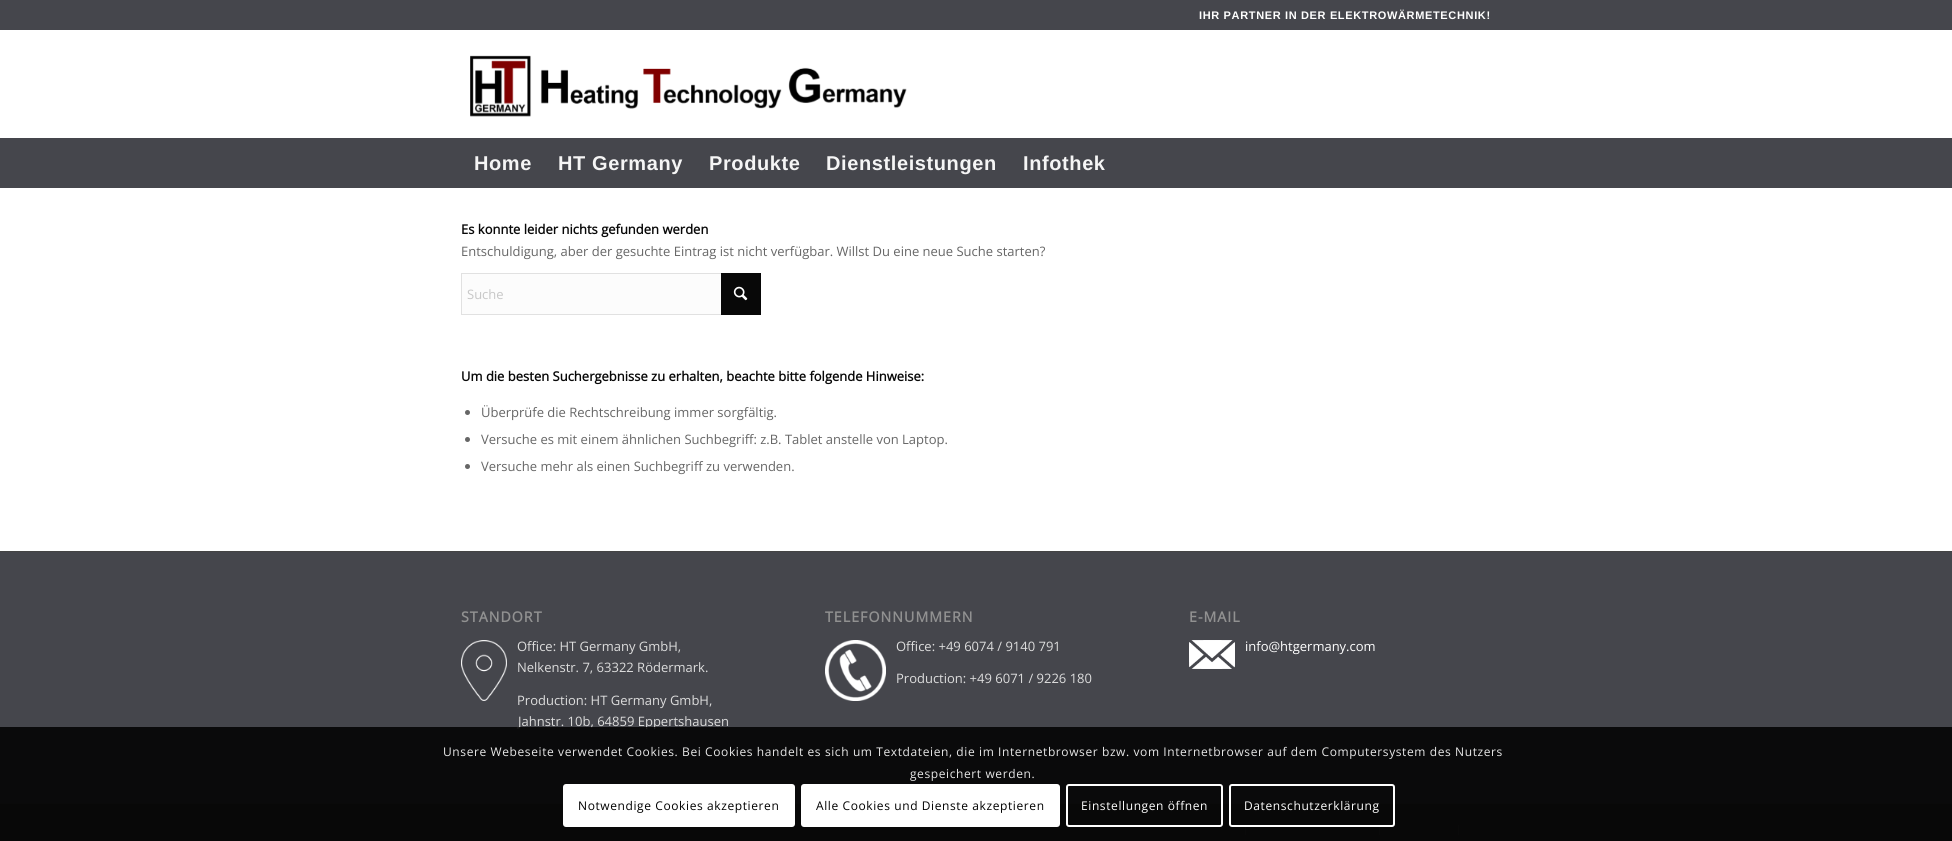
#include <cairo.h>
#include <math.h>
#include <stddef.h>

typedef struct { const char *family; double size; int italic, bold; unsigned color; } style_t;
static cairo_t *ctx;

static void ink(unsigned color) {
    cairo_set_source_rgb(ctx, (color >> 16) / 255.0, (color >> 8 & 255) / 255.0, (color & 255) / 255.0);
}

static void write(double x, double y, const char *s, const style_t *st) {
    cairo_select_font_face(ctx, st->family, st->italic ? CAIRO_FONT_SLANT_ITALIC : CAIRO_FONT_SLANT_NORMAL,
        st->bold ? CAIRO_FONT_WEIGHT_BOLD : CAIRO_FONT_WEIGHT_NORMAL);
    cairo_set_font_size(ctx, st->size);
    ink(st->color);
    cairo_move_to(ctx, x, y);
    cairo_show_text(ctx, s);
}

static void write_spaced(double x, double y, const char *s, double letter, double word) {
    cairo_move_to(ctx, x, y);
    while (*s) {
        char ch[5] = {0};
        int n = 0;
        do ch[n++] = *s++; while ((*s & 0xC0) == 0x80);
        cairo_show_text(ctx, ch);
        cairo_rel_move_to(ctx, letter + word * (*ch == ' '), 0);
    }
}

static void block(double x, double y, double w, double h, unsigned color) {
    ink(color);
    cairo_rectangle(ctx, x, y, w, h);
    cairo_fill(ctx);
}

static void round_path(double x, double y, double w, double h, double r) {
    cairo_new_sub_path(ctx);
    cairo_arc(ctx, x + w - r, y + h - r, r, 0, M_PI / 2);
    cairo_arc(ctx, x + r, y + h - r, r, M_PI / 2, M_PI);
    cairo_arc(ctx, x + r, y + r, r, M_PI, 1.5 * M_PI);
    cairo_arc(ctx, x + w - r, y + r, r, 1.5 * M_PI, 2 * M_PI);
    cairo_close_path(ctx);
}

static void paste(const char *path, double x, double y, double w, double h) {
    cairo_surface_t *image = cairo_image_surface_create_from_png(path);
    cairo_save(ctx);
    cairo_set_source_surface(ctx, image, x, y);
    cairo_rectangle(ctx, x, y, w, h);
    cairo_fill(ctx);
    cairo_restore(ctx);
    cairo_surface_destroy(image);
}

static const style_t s1 = {"Open Sans", 13, 0, 1, 0x080808};
static const style_t s2 = {"Open Sans", 13, 0, 0, 0x666666};
static const style_t s3 = {"Open Sans", 13, 0, 0, 0xc7c7c7};
static const style_t s4 = {"Open Sans", 13, 0, 0, 0xdddddd};
static const style_t s5 = {"Open Sans", 13, 0, 0, 0xffffff};

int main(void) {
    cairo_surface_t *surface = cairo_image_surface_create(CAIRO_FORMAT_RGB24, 1952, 841);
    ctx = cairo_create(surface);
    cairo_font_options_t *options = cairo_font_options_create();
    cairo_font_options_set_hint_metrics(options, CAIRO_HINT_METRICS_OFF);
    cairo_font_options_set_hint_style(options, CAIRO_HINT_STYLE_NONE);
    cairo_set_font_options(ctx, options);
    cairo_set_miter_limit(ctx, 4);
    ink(0xffffff);
    cairo_paint(ctx);
    block(0, 0, 1952, 30, 0x45464c);
    cairo_select_font_face(ctx, "Liberation Sans", CAIRO_FONT_SLANT_NORMAL, CAIRO_FONT_WEIGHT_BOLD);
    cairo_set_font_size(ctx, 11);
    ink(0xffffff);
    write_spaced(1199, 19, "IHR PARTNER IN DER ELEKTROWÄRMETECHNIK!", 0.65, 0);
    paste("pic1.png", 470, 55, 437, 62);
    block(0, 138, 1952, 50, 0x45464c);
    cairo_set_font_size(ctx, 20);
    ink(0xf5f5f5);
    write_spaced(474, 170, "Home", 0.6, 0);
    write_spaced(558, 170, "HT Germany", 0.6, 0);
    write_spaced(709, 170, "Produkte", 0.6, 0);
    write_spaced(826, 170, "Dienstleistungen", 0.6, 0);
    write_spaced(1023, 170, "Infothek", 0.6, 0);
    write(461, 234, "Es konnte leider nichts gefunden werden", &s1);
    write(461, 256, "Entschuldigung, aber der gesuchte Eintrag ist nicht verfügbar. Willst Du eine neue Suche starten?", &s2);
    block(462, 274, 259, 40, 0xfcfcfc);
    cairo_rectangle(ctx, 461.5, 273.5, 299, 41);
    ink(0xe1e1e1);
    cairo_set_line_width(ctx, 1);
    cairo_stroke(ctx);
    block(721, 273, 40, 42, 0x080808);
    write(467, 299, "Suche", &s3);
    paste("pic2.png", 733, 286, 15, 15);
    write(461, 381, "Um die besten Suchergebnisse zu erhalten, beachte bitte folgende Hinweise:", &s1);
    ink(0x666666);
    cairo_new_path(ctx);
    cairo_arc(ctx, 467.5, 412.5, 2.5, 0, 2 * M_PI);
    cairo_fill(ctx);
    write(481, 417, "Überprüfe die Rechtschreibung immer sorgfältig.", &s2);
    cairo_new_path(ctx);
    cairo_arc(ctx, 467.5, 439.5, 2.5, 0, 2 * M_PI);
    cairo_fill(ctx);
    write(481, 444, "Versuche es mit einem ähnlichen Suchbegriff: z.B. Tablet anstelle von Laptop.", &s2);
    cairo_new_path(ctx);
    cairo_arc(ctx, 467.5, 466.5, 2.5, 0, 2 * M_PI);
    cairo_fill(ctx);
    write(481, 471, "Versuche mehr als einen Suchbegriff zu verwenden.", &s2);
    block(0, 552, 1952, 251, 0x45464c);
    block(0, 551, 1952, 1, 0x444444);
    cairo_select_font_face(ctx, "Open Sans", CAIRO_FONT_SLANT_NORMAL, CAIRO_FONT_WEIGHT_BOLD);
    cairo_set_font_size(ctx, 14.25);
    ink(0x919191);
    write_spaced(461, 622, "STANDORT", 1, 0);
    paste("pic3.png", 461, 640, 46, 61);
    write(517, 651, "Office: HT Germany GmbH,", &s4);
    write(517, 672, "Nelkenstr. 7, 63322 Rödermark.", &s4);
    write(517, 705, "Production: HT Germany GmbH,", &s4);
    write(518, 726, "Jahnstr. 10b, 64859 Eppertshausen", &s4);
    cairo_select_font_face(ctx, "Open Sans", CAIRO_FONT_SLANT_NORMAL, CAIRO_FONT_WEIGHT_BOLD);
    cairo_set_font_size(ctx, 14.25);
    ink(0x919191);
    write_spaced(825, 622, "TELEFONNUMMERN", 1, 0);
    paste("pic4.png", 825, 640, 61, 61);
    write(896, 651, "Office: +49 6074 / 9140 791", &s4);
    write(896, 683, "Production: +49 6071 / 9226 180", &s4);
    cairo_select_font_face(ctx, "Open Sans", CAIRO_FONT_SLANT_NORMAL, CAIRO_FONT_WEIGHT_BOLD);
    cairo_set_font_size(ctx, 14.25);
    ink(0x919191);
    write_spaced(1189, 622, "E-MAIL", 1, 0);
    paste("pic5.png", 1189, 640, 46, 29);
    write(1245, 651, "info@htgermany.com", &s5);
    block(0, 804, 1952, 37, 0x333333);
    block(0, 803, 1952, 1, 0x444444);
    block(1245, 825, 1, 10, 0x444444);
    block(1379, 825, 1, 10, 0x444444);
    block(1458, 825, 1, 10, 0x444444);
    cairo_set_source_rgba(ctx, 0, 0, 0, 0.85);
    cairo_rectangle(ctx, 0, 727, 1952, 114);
    cairo_fill(ctx);
    cairo_set_font_size(ctx, 12);
    ink(0xe7e7e7);
    write_spaced(443, 756, "Unsere Webeseite verwendet Cookies. Bei Cookies handelt es sich um Textdateien, die im Internetbrowser bzw. vom Internetbrowser auf dem Computersystem des Nutzers", 0.6, 0);
    write_spaced(910, 778, "gespeichert werden.", 0.6, 0);
    ink(0xffffff);
    round_path(563, 784, 232, 43, 3);
    cairo_fill(ctx);
    ink(0x000000);
    write_spaced(578, 810, "Notwendige Cookies akzeptieren", 0.6, 0);
    ink(0xffffff);
    round_path(801, 784, 259, 43, 3);
    cairo_fill(ctx);
    ink(0x000000);
    write_spaced(816, 810, "Alle Cookies und Dienste akzeptieren", 0.6, 0);
    round_path(1067, 785, 155, 41, 2);
    ink(0xffffff);
    cairo_set_line_width(ctx, 2);
    cairo_stroke(ctx);
    write_spaced(1081, 810, "Einstellungen öffnen", 0.6, 0);
    round_path(1230, 785, 164, 41, 2);
    cairo_stroke(ctx);
    write_spaced(1244, 810, "Datenschutzerklärung", 0.6, 0);
    cairo_surface_write_to_png(surface, "screenshot.png");
    cairo_font_options_destroy(options);
    cairo_destroy(ctx);
    cairo_surface_destroy(surface);
    return 0;
}
